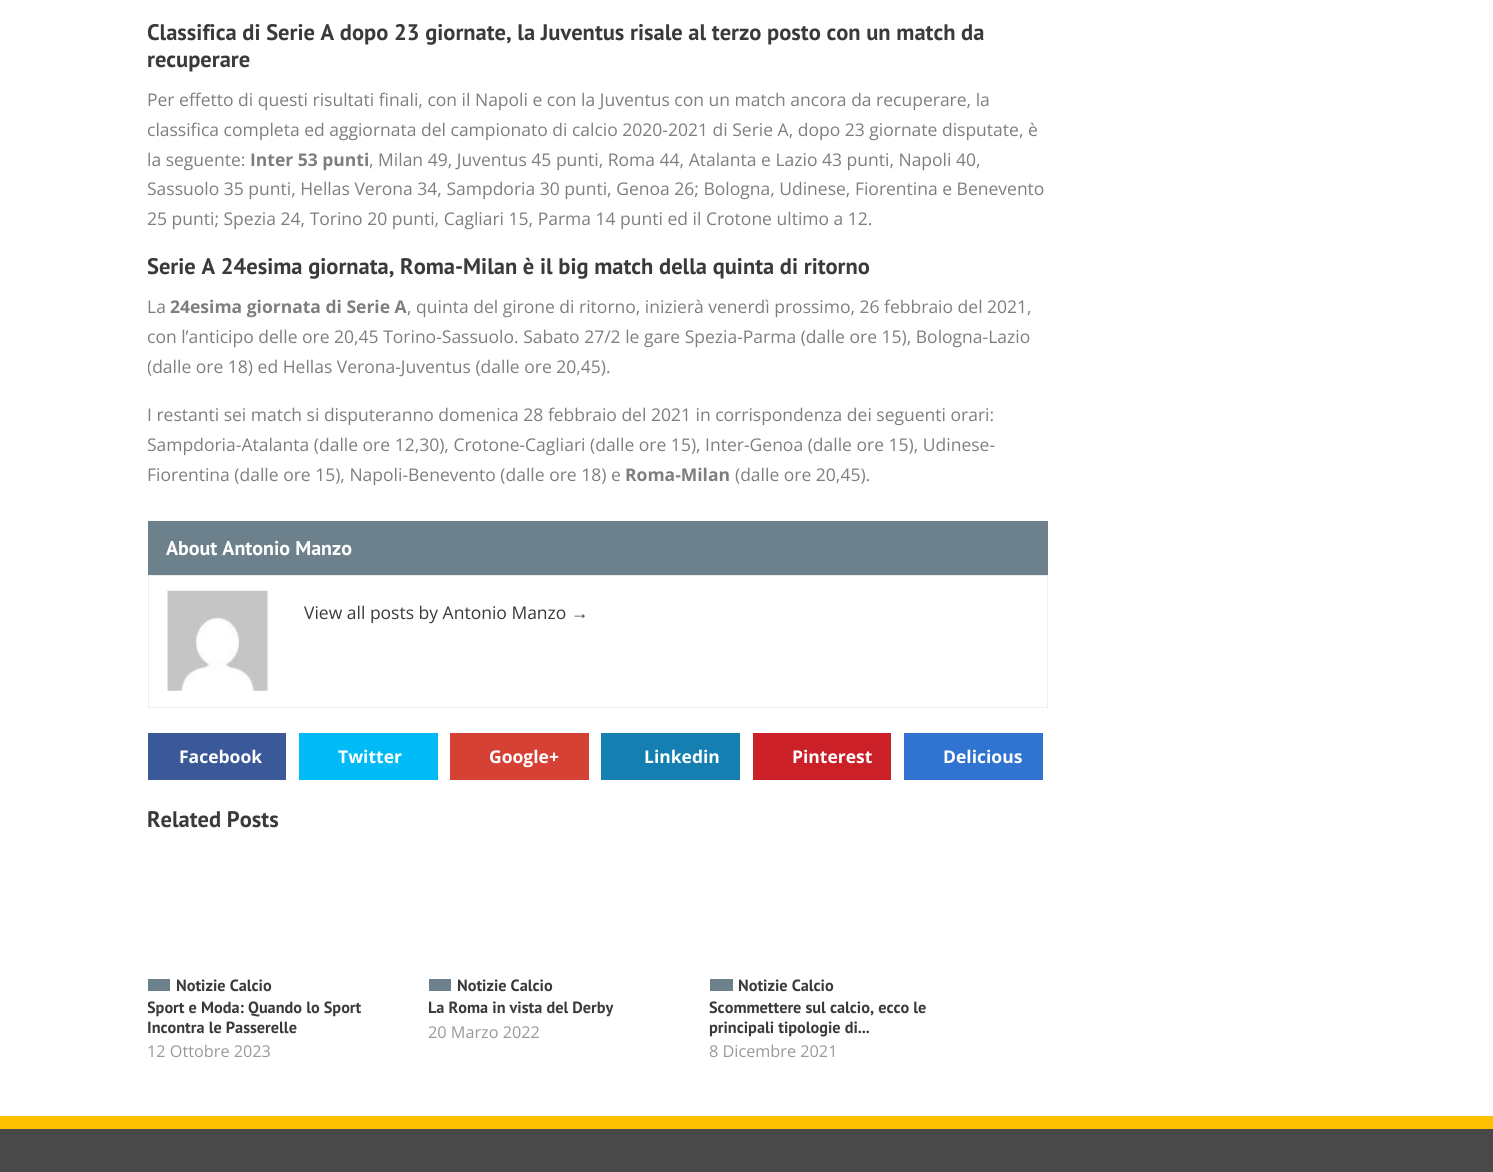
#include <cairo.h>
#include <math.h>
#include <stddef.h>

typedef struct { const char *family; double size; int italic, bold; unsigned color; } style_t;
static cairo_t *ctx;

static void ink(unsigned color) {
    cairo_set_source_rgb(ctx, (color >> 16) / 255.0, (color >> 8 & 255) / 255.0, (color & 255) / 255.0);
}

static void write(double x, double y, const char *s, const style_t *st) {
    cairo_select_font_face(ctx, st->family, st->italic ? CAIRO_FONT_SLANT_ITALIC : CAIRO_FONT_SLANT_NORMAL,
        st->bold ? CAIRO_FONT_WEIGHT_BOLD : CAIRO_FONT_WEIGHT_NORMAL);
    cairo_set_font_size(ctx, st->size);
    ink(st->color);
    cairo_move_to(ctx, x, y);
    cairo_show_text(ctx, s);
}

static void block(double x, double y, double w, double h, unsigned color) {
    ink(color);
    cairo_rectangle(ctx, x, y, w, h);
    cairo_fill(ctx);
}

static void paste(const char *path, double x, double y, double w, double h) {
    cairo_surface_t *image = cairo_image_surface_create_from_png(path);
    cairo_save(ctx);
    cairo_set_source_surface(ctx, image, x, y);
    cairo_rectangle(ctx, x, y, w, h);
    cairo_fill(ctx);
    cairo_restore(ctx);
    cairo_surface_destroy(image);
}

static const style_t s1 = {"PT Sans", 22.5, 0, 1, 0x3a3a3a};
static const style_t s2 = {"Open Sans", 17.5, 0, 0, 0x7e7e7e};
static const style_t s3 = {"Open Sans", 17.5, 0, 1, 0x7e7e7e};
static const style_t s4 = {"PT Sans", 20, 0, 1, 0xffffff};
static const style_t s5 = {"Open Sans", 17.5, 0, 0, 0x3a3a3a};
static const style_t s6 = {"Liberation Sans", 17.5, 0, 0, 0x3a3a3a};
static const style_t s7 = {"Open Sans", 17.5, 0, 1, 0xffffff};
static const style_t s8 = {"PT Sans", 16.25, 0, 1, 0x3a3a3a};
static const style_t s9 = {"Open Sans", 16.25, 0, 0, 0x999999};

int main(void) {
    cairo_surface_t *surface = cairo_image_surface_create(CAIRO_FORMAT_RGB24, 1493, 1172);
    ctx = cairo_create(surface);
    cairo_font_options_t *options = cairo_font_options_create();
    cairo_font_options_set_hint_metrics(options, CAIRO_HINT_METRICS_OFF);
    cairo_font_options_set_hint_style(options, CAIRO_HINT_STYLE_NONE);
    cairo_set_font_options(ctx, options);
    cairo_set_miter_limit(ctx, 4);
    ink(0xffffff);
    cairo_paint(ctx);
    cairo_save(ctx);
    cairo_rectangle(ctx, 148, 0, 900, 1098);
    cairo_clip(ctx);
    write(147, 40, "Classifica di Serie A dopo 23 giornate, la Juventus risale al terzo posto con un match da", &s1);
    cairo_restore(ctx);
    write(147, 67, "recuperare", &s1);
    write(147, 106, "Per effetto di questi risultati finali, con il Napoli e con la Juventus con un match ancora da recuperare, la", &s2);
    write(147, 136, "classifica completa ed aggiornata del campionato di calcio 2020-2021 di Serie A, dopo 23 giornate disputate, è", &s2);
    write(147, 166, "la seguente:", &s2);
    write(250, 166, "Inter 53 punti", &s3);
    write(369, 166, ", Milan 49, Juventus 45 punti, Roma 44, Atalanta e Lazio 43 punti, Napoli 40,", &s2);
    write(147, 195, "Sassuolo 35 punti, Hellas Verona 34, Sampdoria 30 punti, Genoa 26; Bologna, Udinese, Fiorentina e Benevento", &s2);
    write(147, 225, "25 punti; Spezia 24, Torino 20 punti, Cagliari 15, Parma 14 punti ed il Crotone ultimo a 12.", &s2);
    cairo_save(ctx);
    cairo_rectangle(ctx, 148, 0, 900, 1098);
    cairo_clip(ctx);
    write(147, 274, "Serie A 24esima giornata, Roma-Milan è il big match della quinta di ritorno", &s1);
    cairo_restore(ctx);
    write(147, 313, "La", &s2);
    write(170, 313, "24esima giornata di Serie A", &s3);
    write(407, 313, ", quinta del girone di ritorno, inizierà venerdì prossimo, 26 febbraio del 2021,", &s2);
    write(147, 343, "con l’anticipo delle ore 20,45 Torino-Sassuolo. Sabato 27/2 le gare Spezia-Parma (dalle ore 15), Bologna-Lazio", &s2);
    cairo_save(ctx);
    cairo_rectangle(ctx, 148, 0, 900, 1098);
    cairo_clip(ctx);
    write(147, 373, "(dalle ore 18) ed Hellas Verona-Juventus (dalle ore 20,45).", &s2);
    cairo_restore(ctx);
    write(147, 421, "I restanti sei match si disputeranno domenica 28 febbraio del 2021 in corrispondenza dei seguenti orari:", &s2);
    write(147, 451, "Sampdoria-Atalanta (dalle ore 12,30), Crotone-Cagliari (dalle ore 15), Inter-Genoa (dalle ore 15), Udinese-", &s2);
    write(147, 481, "Fiorentina (dalle ore 15), Napoli-Benevento (dalle ore 18) e", &s2);
    write(625, 481, "Roma-Milan", &s3);
    write(735, 481, "(dalle ore 20,45).", &s2);
    block(148, 521, 900, 54, 0x6c818c);
    write(166, 555, "About Antonio Manzo", &s4);
    cairo_rectangle(ctx, 148.5, 575.5, 899, 132);
    ink(0xeeeeee);
    cairo_set_line_width(ctx, 1);
    cairo_stroke(ctx);
    paste("pic1.png", 167, 590, 101, 101);
    write(304, 619, "View all posts by Antonio Manzo", &s5);
    write(571, 619, "→", &s6);
    block(148, 733, 138, 47, 0x3b5999);
    write(179, 763, "Facebook", &s7);
    block(299, 733, 139, 47, 0x01bbf6);
    write(338, 763, "Twitter", &s7);
    block(450, 733, 139, 47, 0xd54135);
    write(489, 763, "Google+", &s7);
    block(601, 733, 139, 47, 0x167fb1);
    write(644, 763, "Linkedin", &s7);
    block(753, 733, 138, 47, 0xcb2027);
    write(792, 763, "Pinterest", &s7);
    block(904, 733, 139, 47, 0x3173d1);
    write(943, 763, "Delicious", &s7);
    write(147, 827, "Related Posts", &s1);
    block(148, 979, 22, 12, 0x6c818c);
    write(176, 991, "Notizie Calcio", &s8);
    cairo_save(ctx);
    cairo_rectangle(ctx, 148, 805, 900, 255);
    cairo_clip(ctx);
    write(147, 1013, "Sport e Moda: Quando lo Sport", &s8);
    cairo_restore(ctx);
    write(147, 1033, "Incontra le Passerelle", &s8);
    write(147, 1057, "12 Ottobre 2023", &s9);
    block(429, 979, 22, 12, 0x6c818c);
    write(457, 991, "Notizie Calcio", &s8);
    write(428, 1013, "La Roma in vista del Derby", &s8);
    write(428, 1038, "20 Marzo 2022", &s9);
    block(710, 979, 23, 12, 0x6c818c);
    write(738, 991, "Notizie Calcio", &s8);
    write(709, 1013, "Scommettere sul calcio, ecco le", &s8);
    write(709, 1033, "principali tipologie di...", &s8);
    write(709, 1057, "8 Dicembre 2021", &s9);
    block(0, 1129, 1493, 43, 0x494949);
    block(0, 1116, 1493, 13, 0xffc000);
    cairo_surface_write_to_png(surface, "screenshot.png");
    cairo_font_options_destroy(options);
    cairo_destroy(ctx);
    cairo_surface_destroy(surface);
    return 0;
}
